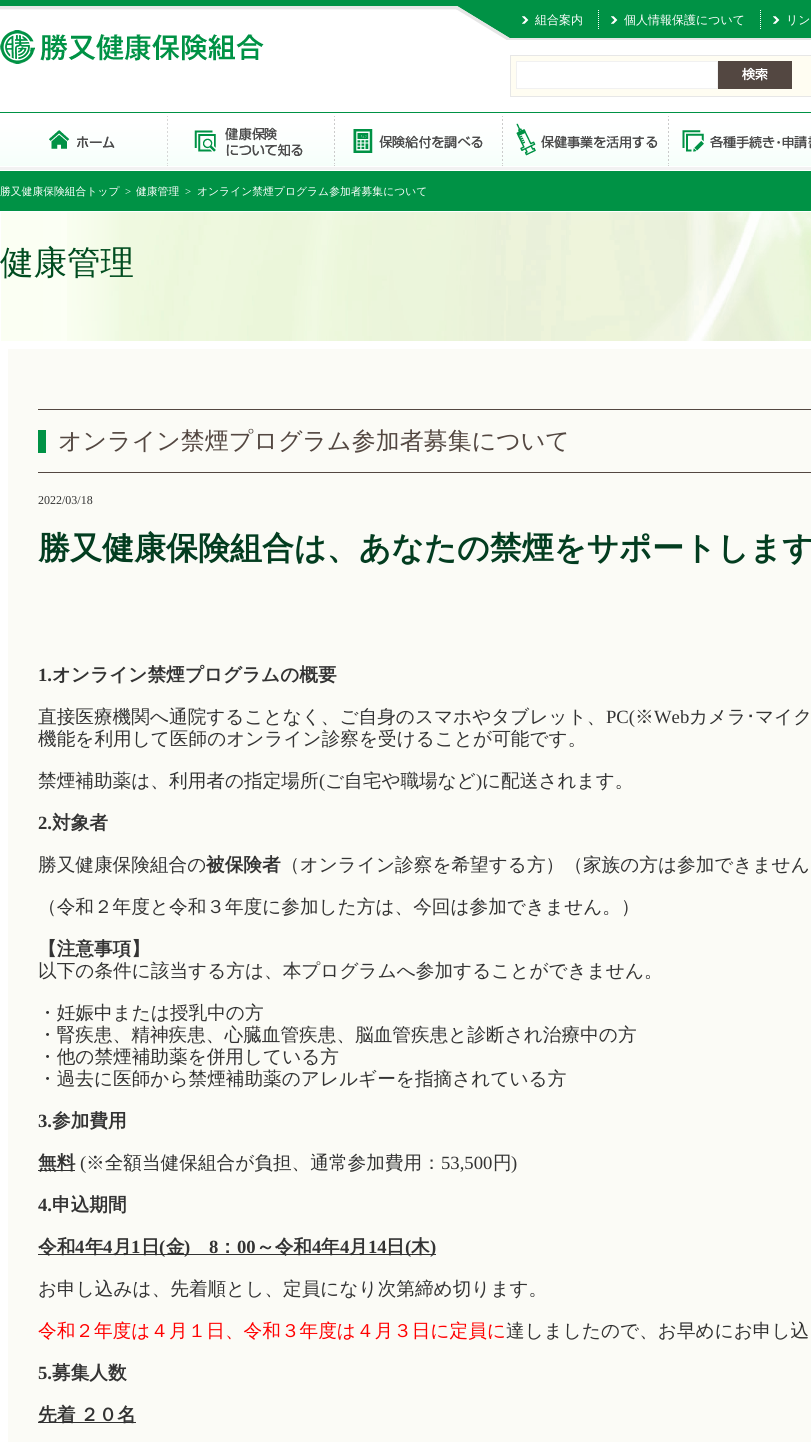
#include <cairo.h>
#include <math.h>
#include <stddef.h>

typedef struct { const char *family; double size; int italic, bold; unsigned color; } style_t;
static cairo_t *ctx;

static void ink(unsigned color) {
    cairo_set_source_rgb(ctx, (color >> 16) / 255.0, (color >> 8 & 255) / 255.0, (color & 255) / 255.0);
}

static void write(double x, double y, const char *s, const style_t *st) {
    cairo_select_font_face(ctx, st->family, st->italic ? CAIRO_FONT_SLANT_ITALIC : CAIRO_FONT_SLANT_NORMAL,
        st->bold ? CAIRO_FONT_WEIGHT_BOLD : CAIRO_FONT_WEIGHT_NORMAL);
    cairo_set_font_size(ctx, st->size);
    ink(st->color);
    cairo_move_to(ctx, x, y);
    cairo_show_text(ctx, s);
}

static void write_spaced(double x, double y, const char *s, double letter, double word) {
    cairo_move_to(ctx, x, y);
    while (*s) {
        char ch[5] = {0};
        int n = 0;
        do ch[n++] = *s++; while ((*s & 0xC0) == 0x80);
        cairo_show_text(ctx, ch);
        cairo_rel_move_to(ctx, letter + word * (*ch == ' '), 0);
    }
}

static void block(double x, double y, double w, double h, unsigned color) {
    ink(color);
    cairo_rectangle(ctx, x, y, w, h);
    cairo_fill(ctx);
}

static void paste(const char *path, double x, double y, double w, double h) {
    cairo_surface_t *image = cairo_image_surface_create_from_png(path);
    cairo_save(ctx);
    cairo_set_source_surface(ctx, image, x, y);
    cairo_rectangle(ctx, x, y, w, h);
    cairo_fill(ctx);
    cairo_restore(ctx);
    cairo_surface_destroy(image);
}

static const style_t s1 = {"WenQuanYi Zen Hei Medium", 12, 0, 0, 0xffffff};
static const style_t s2 = {"WenQuanYi Zen Hei Medium", 10.8, 0, 0, 0xffffff};
static const style_t s3 = {"Liberation Serif", 10.8, 0, 0, 0xffffff};
static const style_t s4 = {"WenQuanYi Zen Hei Medium", 33.5, 0, 0, 0x004c1f};
static const style_t s5 = {"WenQuanYi Zen Hei Medium", 24, 0, 0, 0x534741};
static const style_t s6 = {"Liberation Serif", 12, 0, 0, 0x333333};
static const style_t s7 = {"WenQuanYi Zen Hei", 32, 0, 1, 0x033d20};
static const style_t s8 = {"Liberation Serif", 18.65, 0, 1, 0x333333};
static const style_t s9 = {"WenQuanYi Zen Hei", 18.65, 0, 1, 0x333333};
static const style_t s10 = {"WenQuanYi Zen Hei Medium", 18.65, 0, 0, 0x333333};
static const style_t s11 = {"Liberation Serif", 18.65, 0, 0, 0x333333};
static const style_t s12 = {"IPAPGothic", 18.65, 0, 0, 0x333333};
static const style_t s13 = {"WenQuanYi Zen Hei Medium", 18.65, 0, 0, 0xff0000};

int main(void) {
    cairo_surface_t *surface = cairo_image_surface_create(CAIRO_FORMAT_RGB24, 811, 1442);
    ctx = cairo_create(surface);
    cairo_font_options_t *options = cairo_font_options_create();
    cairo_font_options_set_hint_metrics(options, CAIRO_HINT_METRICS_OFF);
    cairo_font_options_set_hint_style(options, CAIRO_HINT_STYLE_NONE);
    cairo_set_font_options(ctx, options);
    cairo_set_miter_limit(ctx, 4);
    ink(0xffffff);
    cairo_paint(ctx);
    paste("pic1.png", 0, 0, 811, 170);
    paste("pic2.png", 0, 6, 811, 34);
    paste("pic3.png", 522, 16, 7, 8);
    cairo_new_path(ctx);
    cairo_move_to(ctx, 598.5, 10);
    cairo_line_to(ctx, 598.5, 30);
    ink(0xffffff);
    cairo_set_line_width(ctx, 1);
    cairo_set_dash(ctx, (double[]){1, 1}, 2, 0);
    cairo_stroke(ctx);
    write(535, 24, "組合案内", &s1);
    paste("pic3.png", 611, 16, 7, 8);
    cairo_new_path(ctx);
    cairo_move_to(ctx, 760.5, 10);
    cairo_line_to(ctx, 760.5, 30);
    cairo_stroke(ctx);
    write(624, 24, "個人情報保護について", &s1);
    paste("pic3.png", 773, 16, 7, 8);
    write(786, 24, "リン", &s1);
    ink(0xfffdf2);
    cairo_rectangle(ctx, 510.5, 55.5, 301, 41);
    cairo_fill_preserve(ctx);
    ink(0xe7e7e7);
    cairo_set_dash(ctx, NULL, 0, 0);
    cairo_stroke(ctx);
    ink(0xffffff);
    cairo_rectangle(ctx, 516.5, 61.5, 201, 27);
    cairo_fill_preserve(ctx);
    ink(0xf1f1f1);
    cairo_stroke(ctx);
    paste("pic4.png", 718, 61, 74, 28);
    paste("pic5.png", 0, 30, 264, 34);
    paste("pic6.png", 49, 130, 66, 19);
    paste("pic7.png", 167, 116, 136, 50);
    paste("pic8.png", 334, 116, 149, 50);
    paste("pic9.png", 502, 116, 156, 50);
    paste("pic10.png", 668, 116, 143, 50);
    block(0, 171, 811, 40, 0x009245);
    write(0, 195, "勝又健康保険組合トップ", &s2);
    write(125, 195, ">", &s3);
    write(136, 195, "健康管理", &s2);
    write(185, 195, ">", &s3);
    write(197, 195, "オンライン禁煙プログラム参加者募集について", &s2);
    paste("pic11.png", 0, 211, 811, 130);
    write(0, 274, "健康管理", &s4);
    block(8, 349, 803, 1093, 0xfbfbf6);
    block(38, 430, 8, 23, 0x009245);
    block(38, 409, 773, 1, 0x534741);
    block(38, 472, 773, 1, 0x534741);
    write(58, 449, "オンライン禁煙プログラム参加者募集について", &s5);
    write(38, 504, "2022/03/18", &s6);
    write(38, 559, "勝又健康保険組合は、あなたの禁煙をサポートします", &s7);
    write(38, 681, "1.", &s8);
    write(52, 681, "オンライン禁煙プログラムの概要", &s9);
    write(38, 723, "直接医療機関へ通院することなく、ご自身のスマホやタブレット、", &s10);
    write(606, 723, "PC(", &s11);
    write(635, 723, "※", &s10);
    write(654, 723, "Web", &s11);
    write(689, 723, "カメラ", &s10);
    write(746, 723, "･", &s12);
    write(755, 723, "マイク", &s10);
    write(38, 745, "機能を利用して医師のオンライン診察を受けることが可能です。", &s10);
    write(38, 787, "禁煙補助薬は、利用者の指定場所", &s10);
    write(319, 787, "(", &s11);
    write(325, 787, "ご自宅や職場など", &s10);
    write(476, 787, ")", &s11);
    write(482, 787, "に配送されます。", &s10);
    write(38, 829, "2.", &s8);
    write(52, 829, "対象者", &s9);
    write(38, 871, "勝又健康保険組合の", &s10);
    write(206, 871, "被保険者", &s9);
    write(281, 871, "（オンライン診察を希望する方）（家族の方は参加できません", &s10);
    write(38, 913, "（令和２年度と令和３年度に参加した方は、今回は参加できません。）", &s10);
    write(38, 955, "【注意事項】", &s9);
    write(38, 977, "以下の条件に該当する方は、本プログラムへ参加することができません。", &s10);
    write(38, 1019, "・妊娠中または授乳中の方", &s10);
    write(38, 1041, "・腎疾患、精神疾患、心臓血管疾患、脳血管疾患と診断され治療中の方", &s10);
    write(38, 1063, "・他の禁煙補助薬を併用している方", &s10);
    write(38, 1085, "・過去に医師から禁煙補助薬のアレルギーを指摘されている方", &s10);
    write(38, 1127, "3.", &s8);
    write(52, 1127, "参加費用", &s9);
    block(38, 1170, 37, 1, 0x333333);
    write(38, 1169, "無料", &s9);
    write(80, 1169, "(", &s11);
    write(86, 1169, "※全額当健保組合が負担、通常参加費用：", &s10);
    write(441, 1169, "53,500", &s11);
    write(493, 1169, "円", &s10);
    write(511, 1169, ")", &s11);
    write(38, 1211, "4.", &s8);
    write(52, 1211, "申込期間", &s9);
    block(38, 1254, 398, 1, 0x333333);
    write(38, 1253, "令和", &s9);
    write(75, 1253, "4", &s8);
    write(85, 1253, "年", &s9);
    write(103, 1253, "4", &s8);
    write(113, 1253, "月", &s9);
    write(131, 1253, "1", &s8);
    write(141, 1253, "日", &s9);
    write(159, 1253, "(", &s8);
    write(166, 1253, "金", &s9);
    write(184, 1253, ")", &s8);
    write(209, 1253, "8", &s8);
    write(218, 1253, "：", &s9);
    write(237, 1253, "00", &s8);
    write(256, 1253, "～令和", &s9);
    write(312, 1253, "4", &s8);
    write(321, 1253, "年", &s9);
    write(340, 1253, "4", &s8);
    write(349, 1253, "月", &s9);
    write(368, 1253, "14", &s8);
    write(386, 1253, "日", &s9);
    write(405, 1253, "(", &s8);
    write(411, 1253, "木", &s9);
    write(430, 1253, ")", &s8);
    write(38, 1295, "お申し込みは、先着順とし、定員になり次第締め切ります。", &s10);
    write(38, 1337, "令和２年度は４月１日、令和３年度は４月３日に定員に", &s13);
    write(506, 1337, "達しましたので、お早めにお申し込", &s10);
    write(38, 1379, "5.", &s8);
    write(52, 1379, "募集人数", &s9);
    block(38, 1422, 98, 1, 0x333333);
    write_spaced(38, 1421, "先着 ２０名", 0, -1);
    cairo_surface_write_to_png(surface, "screenshot.png");
    cairo_font_options_destroy(options);
    cairo_destroy(ctx);
    cairo_surface_destroy(surface);
    return 0;
}
